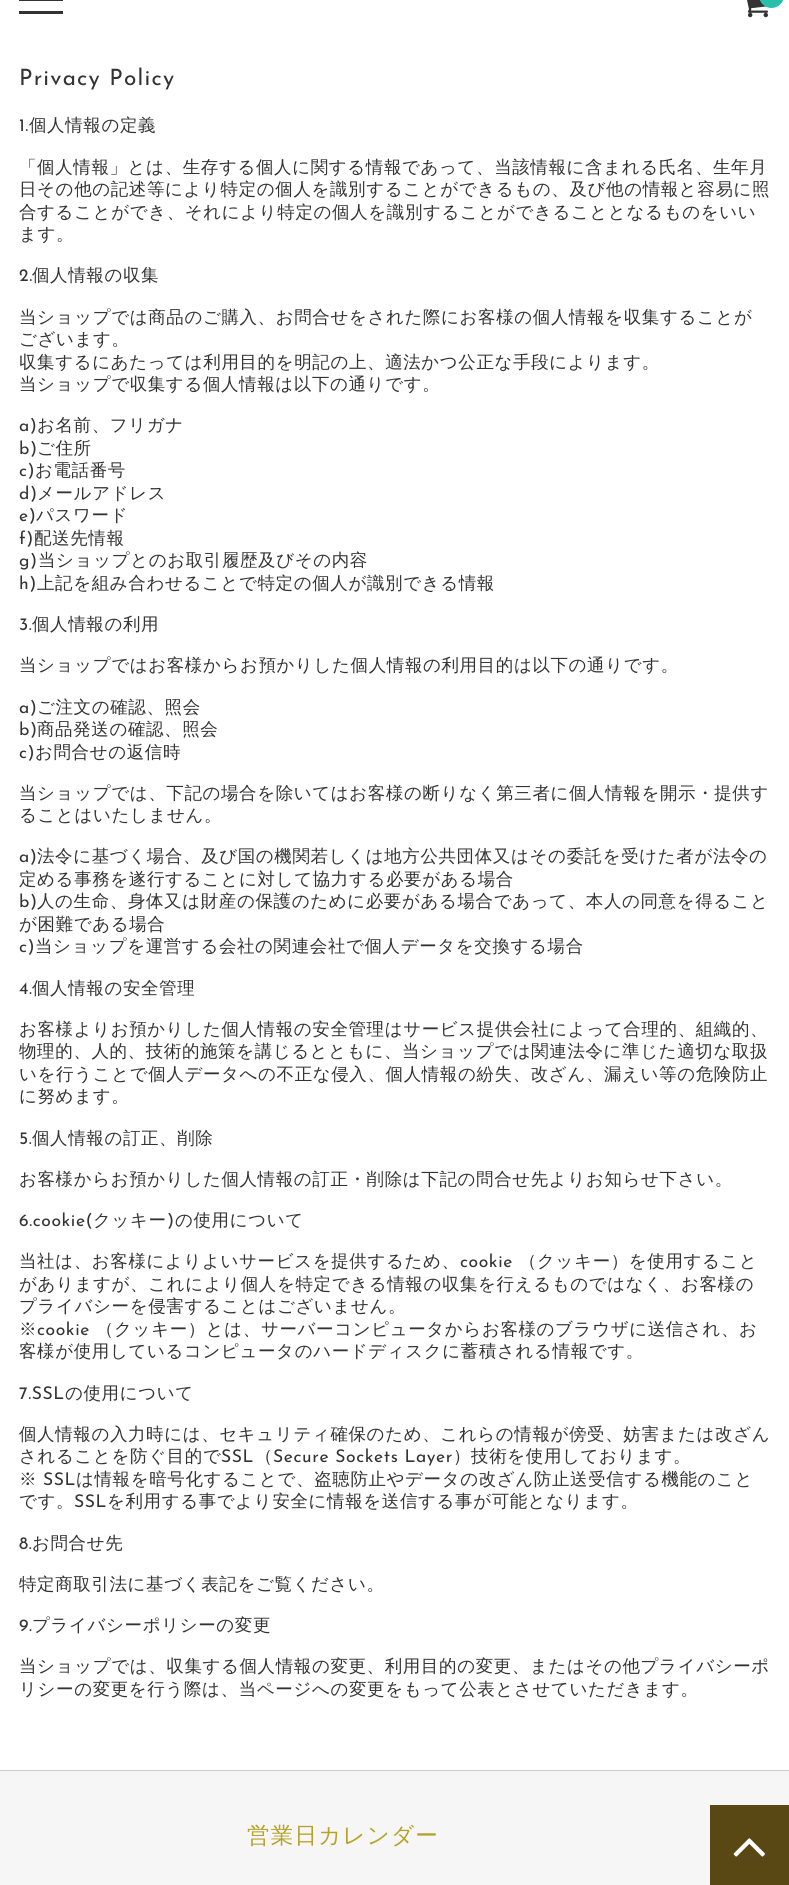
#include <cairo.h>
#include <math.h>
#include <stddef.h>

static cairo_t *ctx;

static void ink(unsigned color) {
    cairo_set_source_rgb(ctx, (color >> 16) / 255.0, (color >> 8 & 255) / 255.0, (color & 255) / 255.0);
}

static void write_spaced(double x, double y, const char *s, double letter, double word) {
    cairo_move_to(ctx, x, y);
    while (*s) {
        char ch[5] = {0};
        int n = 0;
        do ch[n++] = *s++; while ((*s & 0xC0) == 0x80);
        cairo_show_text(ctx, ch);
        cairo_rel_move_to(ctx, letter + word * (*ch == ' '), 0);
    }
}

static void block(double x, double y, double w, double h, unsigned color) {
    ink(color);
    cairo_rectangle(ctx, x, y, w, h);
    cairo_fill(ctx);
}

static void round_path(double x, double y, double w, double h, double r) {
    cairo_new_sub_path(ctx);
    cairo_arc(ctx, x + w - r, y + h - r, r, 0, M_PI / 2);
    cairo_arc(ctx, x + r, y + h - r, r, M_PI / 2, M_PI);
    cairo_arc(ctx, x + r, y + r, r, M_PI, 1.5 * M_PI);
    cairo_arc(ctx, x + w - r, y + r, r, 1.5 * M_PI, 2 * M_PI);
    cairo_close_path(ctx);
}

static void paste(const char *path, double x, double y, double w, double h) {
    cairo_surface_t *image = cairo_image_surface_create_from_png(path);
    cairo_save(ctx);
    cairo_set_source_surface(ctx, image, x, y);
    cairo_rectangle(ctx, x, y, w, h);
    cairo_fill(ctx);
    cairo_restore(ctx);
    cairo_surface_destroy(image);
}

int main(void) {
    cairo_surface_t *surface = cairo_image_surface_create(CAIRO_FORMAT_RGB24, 789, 1885);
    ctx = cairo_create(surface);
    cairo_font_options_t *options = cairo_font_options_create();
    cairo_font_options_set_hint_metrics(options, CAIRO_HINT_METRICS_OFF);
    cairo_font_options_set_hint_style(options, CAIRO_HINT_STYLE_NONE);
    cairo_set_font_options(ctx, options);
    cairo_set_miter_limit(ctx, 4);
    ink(0xffffff);
    cairo_paint(ctx);
    block(19, 0, 44, 1, 0x333333);
    block(19, 11, 44, 3, 0x333333);
    paste("pic1.png", 747, 0, 21, 18);
    ink(0x2abfab);
    round_path(759, -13, 25, 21, 12.5);
    cairo_fill(ctx);
    cairo_select_font_face(ctx, "Josefin Sans Thin", CAIRO_FONT_SLANT_NORMAL, CAIRO_FONT_WEIGHT_NORMAL);
    cairo_set_font_size(ctx, 22.5);
    ink(0x333333);
    write_spaced(19, 85, "Privacy Policy", 1.25, 0);
    cairo_set_font_size(ctx, 17.5);
    write_spaced(19, 131, "1.", 0.6, 0);
    cairo_select_font_face(ctx, "WenQuanYi Zen Hei Medium", CAIRO_FONT_SLANT_NORMAL, CAIRO_FONT_WEIGHT_NORMAL);
    write_spaced(29, 131, "個人情報の定義", 0.6, 0);
    write_spaced(19, 173, "「個人情報」とは、生存する個人に関する情報であって、当該情報に含まれる氏名、生年月", 0.6, 0);
    write_spaced(19, 195, "日その他の記述等により特定の個人を識別することができるもの、及び他の情報と容易に照", 0.6, 0);
    write_spaced(19, 218, "合することができ、それにより特定の個人を識別することができることとなるものをいい", 0.6, 0);
    write_spaced(19, 240, "ます。", 0.6, 0);
    cairo_select_font_face(ctx, "Josefin Sans Thin", CAIRO_FONT_SLANT_NORMAL, CAIRO_FONT_WEIGHT_NORMAL);
    write_spaced(19, 281, "2.", 0.6, 0);
    cairo_select_font_face(ctx, "WenQuanYi Zen Hei Medium", CAIRO_FONT_SLANT_NORMAL, CAIRO_FONT_WEIGHT_NORMAL);
    write_spaced(32, 281, "個人情報の収集", 0.6, 0);
    write_spaced(19, 323, "当ショップでは商品のご購入、お問合せをされた際にお客様の個人情報を収集することが", 0.6, 0);
    write_spaced(19, 345, "ございます。", 0.6, 0);
    write_spaced(19, 368, "収集するにあたっては利用目的を明記の上、適法かつ公正な手段によります。", 0.6, 0);
    write_spaced(19, 390, "当ショップで収集する個人情報は以下の通りです。", 0.6, 0);
    cairo_select_font_face(ctx, "Josefin Sans Thin", CAIRO_FONT_SLANT_NORMAL, CAIRO_FONT_WEIGHT_NORMAL);
    write_spaced(19, 431, "a)", 0.6, 0);
    cairo_select_font_face(ctx, "WenQuanYi Zen Hei Medium", CAIRO_FONT_SLANT_NORMAL, CAIRO_FONT_WEIGHT_NORMAL);
    write_spaced(37, 431, "お名前、フリガナ", 0.6, 0);
    cairo_select_font_face(ctx, "Josefin Sans Thin", CAIRO_FONT_SLANT_NORMAL, CAIRO_FONT_WEIGHT_NORMAL);
    write_spaced(19, 454, "b)", 0.6, 0);
    cairo_select_font_face(ctx, "WenQuanYi Zen Hei Medium", CAIRO_FONT_SLANT_NORMAL, CAIRO_FONT_WEIGHT_NORMAL);
    write_spaced(37, 454, "ご住所", 0.6, 0);
    cairo_select_font_face(ctx, "Josefin Sans Thin", CAIRO_FONT_SLANT_NORMAL, CAIRO_FONT_WEIGHT_NORMAL);
    write_spaced(19, 476, "c)", 0.6, 0);
    cairo_select_font_face(ctx, "WenQuanYi Zen Hei Medium", CAIRO_FONT_SLANT_NORMAL, CAIRO_FONT_WEIGHT_NORMAL);
    write_spaced(35, 476, "お電話番号", 0.6, 0);
    cairo_select_font_face(ctx, "Josefin Sans Thin", CAIRO_FONT_SLANT_NORMAL, CAIRO_FONT_WEIGHT_NORMAL);
    write_spaced(19, 499, "d)", 0.6, 0);
    cairo_select_font_face(ctx, "WenQuanYi Zen Hei Medium", CAIRO_FONT_SLANT_NORMAL, CAIRO_FONT_WEIGHT_NORMAL);
    write_spaced(37, 499, "メールアドレス", 0.6, 0);
    cairo_select_font_face(ctx, "Josefin Sans Thin", CAIRO_FONT_SLANT_NORMAL, CAIRO_FONT_WEIGHT_NORMAL);
    write_spaced(19, 521, "e)", 0.6, 0);
    cairo_select_font_face(ctx, "WenQuanYi Zen Hei Medium", CAIRO_FONT_SLANT_NORMAL, CAIRO_FONT_WEIGHT_NORMAL);
    write_spaced(36, 521, "パスワード", 0.6, 0);
    cairo_select_font_face(ctx, "Josefin Sans Thin", CAIRO_FONT_SLANT_NORMAL, CAIRO_FONT_WEIGHT_NORMAL);
    write_spaced(19, 544, "f)", 0.6, 0);
    cairo_select_font_face(ctx, "WenQuanYi Zen Hei Medium", CAIRO_FONT_SLANT_NORMAL, CAIRO_FONT_WEIGHT_NORMAL);
    write_spaced(34, 544, "配送先情報", 0.6, 0);
    cairo_select_font_face(ctx, "Josefin Sans Thin", CAIRO_FONT_SLANT_NORMAL, CAIRO_FONT_WEIGHT_NORMAL);
    write_spaced(19, 566, "g)", 0.6, 0);
    cairo_select_font_face(ctx, "WenQuanYi Zen Hei Medium", CAIRO_FONT_SLANT_NORMAL, CAIRO_FONT_WEIGHT_NORMAL);
    write_spaced(38, 566, "当ショップとのお取引履歴及びその内容", 0.6, 0);
    cairo_select_font_face(ctx, "Josefin Sans Thin", CAIRO_FONT_SLANT_NORMAL, CAIRO_FONT_WEIGHT_NORMAL);
    write_spaced(19, 589, "h)", 0.6, 0);
    cairo_select_font_face(ctx, "WenQuanYi Zen Hei Medium", CAIRO_FONT_SLANT_NORMAL, CAIRO_FONT_WEIGHT_NORMAL);
    write_spaced(37, 589, "上記を組み合わせることで特定の個人が識別できる情報", 0.6, 0);
    cairo_select_font_face(ctx, "Josefin Sans Thin", CAIRO_FONT_SLANT_NORMAL, CAIRO_FONT_WEIGHT_NORMAL);
    write_spaced(19, 630, "3.", 0.6, 0);
    cairo_select_font_face(ctx, "WenQuanYi Zen Hei Medium", CAIRO_FONT_SLANT_NORMAL, CAIRO_FONT_WEIGHT_NORMAL);
    write_spaced(32, 630, "個人情報の利用", 0.6, 0);
    write_spaced(19, 671, "当ショップではお客様からお預かりした個人情報の利用目的は以下の通りです。", 0.6, 0);
    cairo_select_font_face(ctx, "Josefin Sans Thin", CAIRO_FONT_SLANT_NORMAL, CAIRO_FONT_WEIGHT_NORMAL);
    write_spaced(19, 713, "a)", 0.6, 0);
    cairo_select_font_face(ctx, "WenQuanYi Zen Hei Medium", CAIRO_FONT_SLANT_NORMAL, CAIRO_FONT_WEIGHT_NORMAL);
    write_spaced(37, 713, "ご注文の確認、照会", 0.6, 0);
    cairo_select_font_face(ctx, "Josefin Sans Thin", CAIRO_FONT_SLANT_NORMAL, CAIRO_FONT_WEIGHT_NORMAL);
    write_spaced(19, 735, "b)", 0.6, 0);
    cairo_select_font_face(ctx, "WenQuanYi Zen Hei Medium", CAIRO_FONT_SLANT_NORMAL, CAIRO_FONT_WEIGHT_NORMAL);
    write_spaced(37, 735, "商品発送の確認、照会", 0.6, 0);
    cairo_select_font_face(ctx, "Josefin Sans Thin", CAIRO_FONT_SLANT_NORMAL, CAIRO_FONT_WEIGHT_NORMAL);
    write_spaced(19, 758, "c)", 0.6, 0);
    cairo_select_font_face(ctx, "WenQuanYi Zen Hei Medium", CAIRO_FONT_SLANT_NORMAL, CAIRO_FONT_WEIGHT_NORMAL);
    write_spaced(35, 758, "お問合せの返信時", 0.6, 0);
    write_spaced(19, 799, "当ショップでは、下記の場合を除いてはお客様の断りなく第三者に個人情報を開示・提供す", 0.6, 0);
    write_spaced(19, 821, "ることはいたしません。", 0.6, 0);
    cairo_select_font_face(ctx, "Josefin Sans Thin", CAIRO_FONT_SLANT_NORMAL, CAIRO_FONT_WEIGHT_NORMAL);
    write_spaced(19, 862, "a)", 0.6, 0);
    cairo_select_font_face(ctx, "WenQuanYi Zen Hei Medium", CAIRO_FONT_SLANT_NORMAL, CAIRO_FONT_WEIGHT_NORMAL);
    write_spaced(37, 862, "法令に基づく場合、及び国の機関若しくは地方公共団体又はその委託を受けた者が法令の", 0.6, 0);
    write_spaced(19, 885, "定める事務を遂行することに対して協力する必要がある場合", 0.6, 0);
    cairo_select_font_face(ctx, "Josefin Sans Thin", CAIRO_FONT_SLANT_NORMAL, CAIRO_FONT_WEIGHT_NORMAL);
    write_spaced(19, 907, "b)", 0.6, 0);
    cairo_select_font_face(ctx, "WenQuanYi Zen Hei Medium", CAIRO_FONT_SLANT_NORMAL, CAIRO_FONT_WEIGHT_NORMAL);
    write_spaced(37, 907, "人の生命、身体又は財産の保護のために必要がある場合であって、本人の同意を得ること", 0.6, 0);
    write_spaced(19, 930, "が困難である場合", 0.6, 0);
    cairo_select_font_face(ctx, "Josefin Sans Thin", CAIRO_FONT_SLANT_NORMAL, CAIRO_FONT_WEIGHT_NORMAL);
    write_spaced(19, 952, "c)", 0.6, 0);
    cairo_select_font_face(ctx, "WenQuanYi Zen Hei Medium", CAIRO_FONT_SLANT_NORMAL, CAIRO_FONT_WEIGHT_NORMAL);
    write_spaced(35, 952, "当ショップを運営する会社の関連会社で個人データを交換する場合", 0.6, 0);
    cairo_select_font_face(ctx, "Josefin Sans Thin", CAIRO_FONT_SLANT_NORMAL, CAIRO_FONT_WEIGHT_NORMAL);
    write_spaced(19, 994, "4.", 0.6, 0);
    cairo_select_font_face(ctx, "WenQuanYi Zen Hei Medium", CAIRO_FONT_SLANT_NORMAL, CAIRO_FONT_WEIGHT_NORMAL);
    write_spaced(32, 994, "個人情報の安全管理", 0.6, 0);
    write_spaced(19, 1035, "お客様よりお預かりした個人情報の安全管理はサービス提供会社によって合理的、組織的、", 0.6, 0);
    write_spaced(19, 1057, "物理的、人的、技術的施策を講じるとともに、当ショップでは関連法令に準じた適切な取扱", 0.6, 0);
    write_spaced(19, 1080, "いを行うことで個人データへの不正な侵入、個人情報の紛失、改ざん、漏えい等の危険防止", 0.6, 0);
    write_spaced(19, 1102, "に努めます。", 0.6, 0);
    cairo_select_font_face(ctx, "Josefin Sans Thin", CAIRO_FONT_SLANT_NORMAL, CAIRO_FONT_WEIGHT_NORMAL);
    write_spaced(19, 1144, "5.", 0.6, 0);
    cairo_select_font_face(ctx, "WenQuanYi Zen Hei Medium", CAIRO_FONT_SLANT_NORMAL, CAIRO_FONT_WEIGHT_NORMAL);
    write_spaced(32, 1144, "個人情報の訂正、削除", 0.6, 0);
    write_spaced(19, 1185, "お客様からお預かりした個人情報の訂正・削除は下記の問合せ先よりお知らせ下さい。", 0.6, 0);
    cairo_select_font_face(ctx, "Josefin Sans Thin", CAIRO_FONT_SLANT_NORMAL, CAIRO_FONT_WEIGHT_NORMAL);
    write_spaced(19, 1226, "6.cookie(", 0.6, 0);
    cairo_select_font_face(ctx, "WenQuanYi Zen Hei Medium", CAIRO_FONT_SLANT_NORMAL, CAIRO_FONT_WEIGHT_NORMAL);
    write_spaced(93, 1226, "クッキー", 0.6, 0);
    cairo_select_font_face(ctx, "Josefin Sans Thin", CAIRO_FONT_SLANT_NORMAL, CAIRO_FONT_WEIGHT_NORMAL);
    write_spaced(167, 1226, ")", 0.6, 0);
    cairo_select_font_face(ctx, "WenQuanYi Zen Hei Medium", CAIRO_FONT_SLANT_NORMAL, CAIRO_FONT_WEIGHT_NORMAL);
    write_spaced(175, 1226, "の使用について", 0.6, 0);
    write_spaced(19, 1267, "当社は、お客様によりよいサービスを提供するため、", 0.6, 0);
    cairo_select_font_face(ctx, "Josefin Sans Thin", CAIRO_FONT_SLANT_NORMAL, CAIRO_FONT_WEIGHT_NORMAL);
    write_spaced(460, 1267, "cookie", 0.6, 0);
    cairo_select_font_face(ctx, "WenQuanYi Zen Hei Medium", CAIRO_FONT_SLANT_NORMAL, CAIRO_FONT_WEIGHT_NORMAL);
    write_spaced(519, 1267, "（クッキー）を使用すること", 0.6, 0);
    write_spaced(19, 1290, "がありますが、これにより個人を特定できる情報の収集を行えるものではなく、お客様の", 0.6, 0);
    write_spaced(19, 1312, "プライバシーを侵害することはございません。", 0.6, 0);
    write_spaced(19, 1335, "※", 0.6, 0);
    cairo_select_font_face(ctx, "Josefin Sans Thin", CAIRO_FONT_SLANT_NORMAL, CAIRO_FONT_WEIGHT_NORMAL);
    write_spaced(37, 1335, "cookie", 0.6, 0);
    cairo_select_font_face(ctx, "WenQuanYi Zen Hei Medium", CAIRO_FONT_SLANT_NORMAL, CAIRO_FONT_WEIGHT_NORMAL);
    write_spaced(96, 1335, "（クッキー）とは、サーバーコンピュータからお客様のブラウザに送信され、お", 0.6, 0);
    write_spaced(19, 1357, "客様が使用しているコンピュータのハードディスクに蓄積される情報です。", 0.6, 0);
    cairo_select_font_face(ctx, "Josefin Sans Thin", CAIRO_FONT_SLANT_NORMAL, CAIRO_FONT_WEIGHT_NORMAL);
    write_spaced(19, 1399, "7.SSL", 0.6, 0);
    cairo_select_font_face(ctx, "WenQuanYi Zen Hei Medium", CAIRO_FONT_SLANT_NORMAL, CAIRO_FONT_WEIGHT_NORMAL);
    write_spaced(65, 1399, "の使用について", 0.6, 0);
    write_spaced(19, 1440, "個人情報の入力時には、セキュリティ確保のため、これらの情報が傍受、妨害または改ざん", 0.6, 0);
    write_spaced(19, 1462, "されることを防ぐ目的で", 0.6, 0);
    cairo_select_font_face(ctx, "Josefin Sans Thin", CAIRO_FONT_SLANT_NORMAL, CAIRO_FONT_WEIGHT_NORMAL);
    write_spaced(221, 1462, "SSL", 0.6, 0);
    cairo_select_font_face(ctx, "WenQuanYi Zen Hei Medium", CAIRO_FONT_SLANT_NORMAL, CAIRO_FONT_WEIGHT_NORMAL);
    write_spaced(255, 1462, "（", 0.6, 0);
    cairo_select_font_face(ctx, "Josefin Sans Thin", CAIRO_FONT_SLANT_NORMAL, CAIRO_FONT_WEIGHT_NORMAL);
    write_spaced(273, 1462, "Secure Sockets Layer", 0.6, 0);
    cairo_select_font_face(ctx, "WenQuanYi Zen Hei Medium", CAIRO_FONT_SLANT_NORMAL, CAIRO_FONT_WEIGHT_NORMAL);
    write_spaced(453, 1462, "）技術を使用しております。", 0.6, 0);
    write_spaced(19, 1485, "※", 0.6, 0);
    cairo_select_font_face(ctx, "Josefin Sans Thin", CAIRO_FONT_SLANT_NORMAL, CAIRO_FONT_WEIGHT_NORMAL);
    write_spaced(43, 1485, "SSL", 0.6, 0);
    cairo_select_font_face(ctx, "WenQuanYi Zen Hei Medium", CAIRO_FONT_SLANT_NORMAL, CAIRO_FONT_WEIGHT_NORMAL);
    write_spaced(76, 1485, "は情報を暗号化することで、盗聴防止やデータの改ざん防止送受信する機能のこと", 0.6, 0);
    write_spaced(19, 1507, "です。", 0.6, 0);
    cairo_select_font_face(ctx, "Josefin Sans Thin", CAIRO_FONT_SLANT_NORMAL, CAIRO_FONT_WEIGHT_NORMAL);
    write_spaced(74, 1507, "SSL", 0.6, 0);
    cairo_select_font_face(ctx, "WenQuanYi Zen Hei Medium", CAIRO_FONT_SLANT_NORMAL, CAIRO_FONT_WEIGHT_NORMAL);
    write_spaced(107, 1507, "を利用する事でより安全に情報を送信する事が可能となります。", 0.6, 0);
    cairo_select_font_face(ctx, "Josefin Sans Thin", CAIRO_FONT_SLANT_NORMAL, CAIRO_FONT_WEIGHT_NORMAL);
    write_spaced(19, 1549, "8.", 0.6, 0);
    cairo_select_font_face(ctx, "WenQuanYi Zen Hei Medium", CAIRO_FONT_SLANT_NORMAL, CAIRO_FONT_WEIGHT_NORMAL);
    write_spaced(32, 1549, "お問合せ先", 0.6, 0);
    write_spaced(19, 1590, "特定商取引法に基づく表記をご覧ください。", 0.6, 0);
    cairo_select_font_face(ctx, "Josefin Sans Thin", CAIRO_FONT_SLANT_NORMAL, CAIRO_FONT_WEIGHT_NORMAL);
    write_spaced(19, 1631, "9.", 0.6, 0);
    cairo_select_font_face(ctx, "WenQuanYi Zen Hei Medium", CAIRO_FONT_SLANT_NORMAL, CAIRO_FONT_WEIGHT_NORMAL);
    write_spaced(32, 1631, "プライバシーポリシーの変更", 0.6, 0);
    write_spaced(19, 1672, "当ショップでは、収集する個人情報の変更、利用目的の変更、またはその他プライバシーポ", 0.6, 0);
    write_spaced(19, 1695, "リシーの変更を行う際は、当ページへの変更をもって公表とさせていただきます。", 0.6, 0);
    block(0, 1771, 789, 114, 0xf6f6f6);
    block(0, 1770, 789, 1, 0xcccccc);
    cairo_set_font_size(ctx, 22.5);
    ink(0xb5a226);
    write_spaced(247, 1843, "営業日カレンダー", 1.25, 0);
    block(710, 1805, 79, 80, 0x594814);
    paste("pic2.png", 733, 1838, 32, 19);
    cairo_surface_write_to_png(surface, "screenshot.png");
    cairo_font_options_destroy(options);
    cairo_destroy(ctx);
    cairo_surface_destroy(surface);
    return 0;
}
